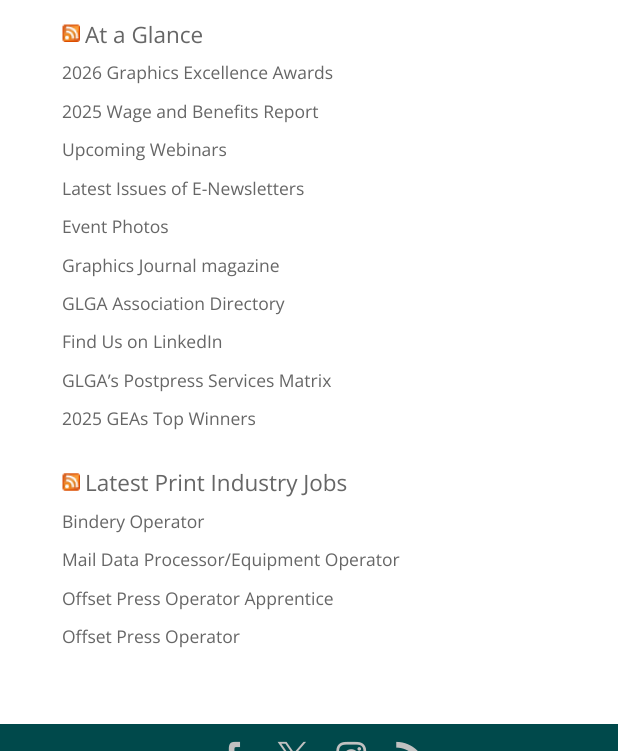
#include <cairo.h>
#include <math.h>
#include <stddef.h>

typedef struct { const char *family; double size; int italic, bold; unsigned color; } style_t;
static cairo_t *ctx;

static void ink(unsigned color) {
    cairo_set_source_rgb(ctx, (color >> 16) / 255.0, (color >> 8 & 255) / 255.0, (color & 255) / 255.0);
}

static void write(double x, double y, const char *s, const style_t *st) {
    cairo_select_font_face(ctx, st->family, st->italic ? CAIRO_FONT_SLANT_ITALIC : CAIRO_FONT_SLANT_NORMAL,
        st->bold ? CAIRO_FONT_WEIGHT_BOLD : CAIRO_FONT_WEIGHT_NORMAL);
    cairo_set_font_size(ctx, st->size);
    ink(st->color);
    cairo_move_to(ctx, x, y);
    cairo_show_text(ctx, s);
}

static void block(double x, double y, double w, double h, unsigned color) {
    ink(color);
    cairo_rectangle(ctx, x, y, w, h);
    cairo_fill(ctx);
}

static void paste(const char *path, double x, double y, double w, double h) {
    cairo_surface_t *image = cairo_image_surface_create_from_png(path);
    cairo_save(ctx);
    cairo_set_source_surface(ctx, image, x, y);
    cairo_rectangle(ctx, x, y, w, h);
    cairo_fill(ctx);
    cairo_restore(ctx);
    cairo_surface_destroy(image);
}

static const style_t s1 = {"Open Sans", 22.5, 0, 0, 0x666666};
static const style_t s2 = {"Open Sans", 17.5, 0, 0, 0x666666};

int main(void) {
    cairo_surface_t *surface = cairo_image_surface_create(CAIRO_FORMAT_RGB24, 618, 751);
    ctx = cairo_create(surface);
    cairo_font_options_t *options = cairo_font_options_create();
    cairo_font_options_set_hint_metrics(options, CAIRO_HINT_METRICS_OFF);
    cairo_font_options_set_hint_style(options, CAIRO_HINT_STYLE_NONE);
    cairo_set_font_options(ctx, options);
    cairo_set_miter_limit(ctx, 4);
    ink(0xffffff);
    cairo_paint(ctx);
    paste("pic1.png", 62, 24, 18, 18);
    write(85, 43, "At a Glance", &s1);
    write(62, 79, "2026 Graphics Excellence Awards", &s2);
    write(62, 118, "2025 Wage and Benefits Report", &s2);
    write(62, 156, "Upcoming Webinars", &s2);
    write(62, 195, "Latest Issues of E-Newsletters", &s2);
    write(62, 233, "Event Photos", &s2);
    write(62, 272, "Graphics Journal magazine", &s2);
    write(62, 310, "GLGA Association Directory", &s2);
    write(62, 348, "Find Us on LinkedIn", &s2);
    write(62, 387, "GLGA’s Postpress Services Matrix", &s2);
    write(62, 425, "2025 GEAs Top Winners", &s2);
    paste("pic2.png", 62, 473, 18, 18);
    write(85, 491, "Latest Print Industry Jobs", &s1);
    write(62, 528, "Bindery Operator", &s2);
    write(62, 566, "Mail Data Processor/Equipment Operator", &s2);
    write(62, 605, "Offset Press Operator Apprentice", &s2);
    write(62, 643, "Offset Press Operator", &s2);
    block(0, 724, 618, 27, 0x00494b);
    paste("pic3.png", 228, 741, 13, 10);
    paste("pic4.png", 277, 741, 29, 10);
    paste("pic5.png", 336, 741, 31, 10);
    paste("pic6.png", 396, 741, 22, 10);
    cairo_surface_write_to_png(surface, "screenshot.png");
    cairo_font_options_destroy(options);
    cairo_destroy(ctx);
    cairo_surface_destroy(surface);
    return 0;
}
